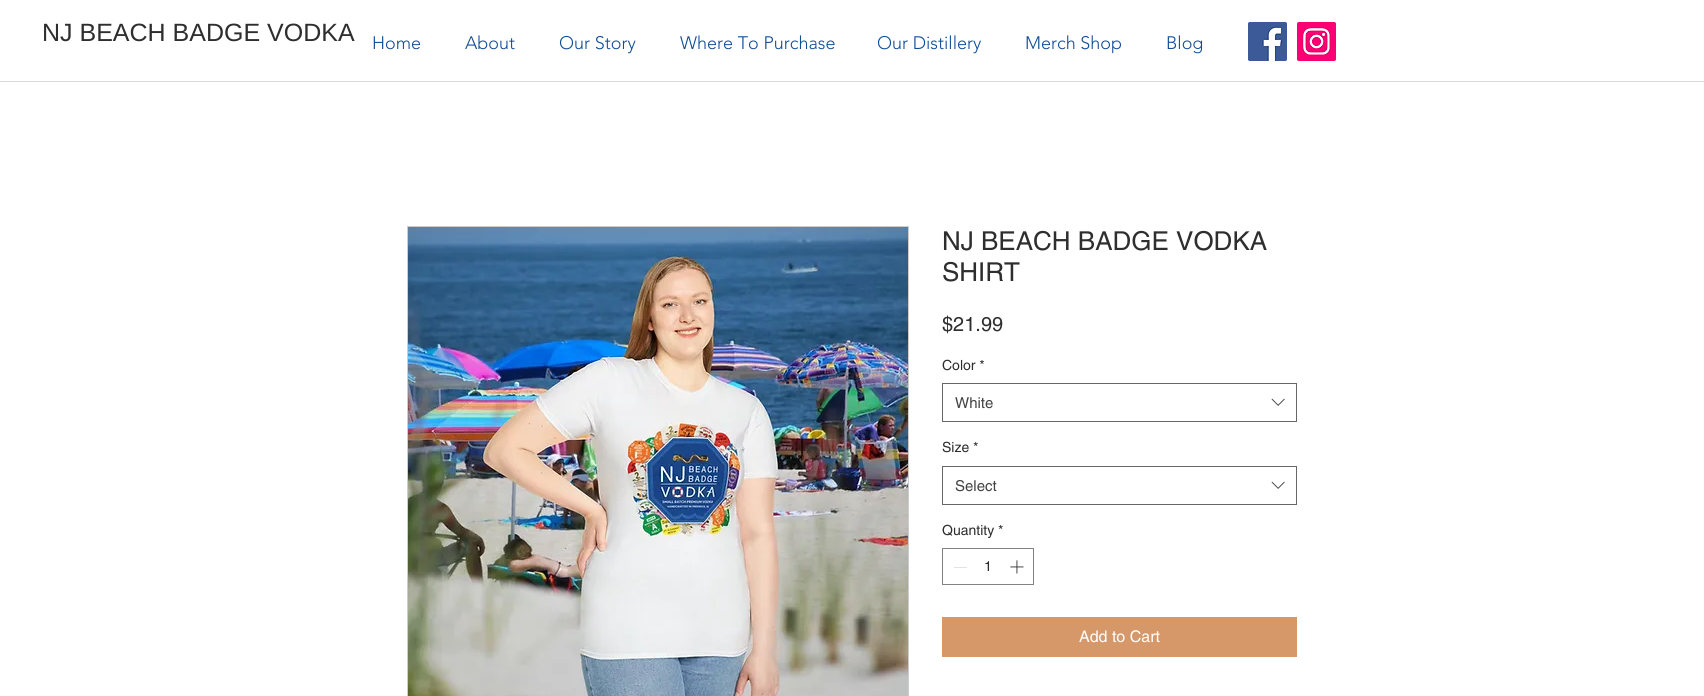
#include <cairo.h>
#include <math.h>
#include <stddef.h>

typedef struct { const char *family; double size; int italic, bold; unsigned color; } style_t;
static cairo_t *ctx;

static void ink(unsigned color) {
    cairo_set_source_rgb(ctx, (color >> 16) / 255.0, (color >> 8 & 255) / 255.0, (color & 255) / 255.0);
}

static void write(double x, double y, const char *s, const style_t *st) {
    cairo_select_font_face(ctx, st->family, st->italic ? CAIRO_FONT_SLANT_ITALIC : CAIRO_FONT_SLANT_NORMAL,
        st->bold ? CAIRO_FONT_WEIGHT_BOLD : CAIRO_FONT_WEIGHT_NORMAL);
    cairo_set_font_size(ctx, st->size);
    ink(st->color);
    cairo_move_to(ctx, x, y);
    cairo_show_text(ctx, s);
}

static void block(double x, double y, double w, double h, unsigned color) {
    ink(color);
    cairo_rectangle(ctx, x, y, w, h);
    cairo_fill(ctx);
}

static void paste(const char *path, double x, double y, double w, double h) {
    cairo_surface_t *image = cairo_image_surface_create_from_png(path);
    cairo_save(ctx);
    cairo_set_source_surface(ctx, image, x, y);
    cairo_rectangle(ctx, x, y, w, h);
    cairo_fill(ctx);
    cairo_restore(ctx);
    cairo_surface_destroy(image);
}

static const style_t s1 = {"Liberation Sans", 25, 0, 0, 0x2f2e2e};
static const style_t s2 = {"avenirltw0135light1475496 Light", 18, 0, 0, 0x0f4c96};
static const style_t s3 = {"helvetica", 26, 0, 0, 0x2f2e2e};
static const style_t s4 = {"helvetica", 20, 0, 0, 0x2f2e2e};
static const style_t s5 = {"helvetica", 14, 0, 0, 0x2f2e2e};
static const style_t s6 = {"helvetica", 15, 0, 0, 0x444444};
static const style_t s7 = {"helvetica", 16, 0, 0, 0xffffff};

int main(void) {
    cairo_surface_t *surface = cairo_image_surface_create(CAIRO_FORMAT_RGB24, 1704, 696);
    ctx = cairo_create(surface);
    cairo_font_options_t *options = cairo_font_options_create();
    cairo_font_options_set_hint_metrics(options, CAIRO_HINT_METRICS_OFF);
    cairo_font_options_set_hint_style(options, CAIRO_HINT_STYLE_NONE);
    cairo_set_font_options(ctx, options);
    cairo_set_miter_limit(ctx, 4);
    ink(0xffffff);
    cairo_paint(ctx);
    cairo_rectangle(ctx, -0.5, -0.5, 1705, 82);
    ink(0xd9d9d9);
    cairo_set_line_width(ctx, 1);
    cairo_stroke(ctx);
    write(42, 41, "NJ BEACH BADGE VODKA", &s1);
    paste("pic1.png", 1248, 22, 39, 39);
    paste("pic2.png", 1297, 22, 39, 39);
    write(372, 49, "Home", &s2);
    write(465, 49, "About", &s2);
    write(559, 49, "Our Story", &s2);
    write(680, 49, "Where To Purchase", &s2);
    write(877, 49, "Our Distillery", &s2);
    write(1025, 49, "Merch Shop", &s2);
    write(1166, 49, "Blog", &s2);
    cairo_rectangle(ctx, 407.5, 226.5, 501, 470);
    ink(0xcccccc);
    cairo_stroke(ctx);
    paste("pic3.png", 408, 227, 500, 469);
    write(942, 250, "NJ BEACH BADGE VODKA", &s3);
    write(942, 281, "SHIRT", &s3);
    write(942, 331, "$21.99", &s4);
    write(942, 370, "Color *", &s5);
    cairo_rectangle(ctx, 942.5, 383.5, 354, 38);
    ink(0x666666);
    cairo_stroke(ctx);
    write(955, 408, "White", &s6);
    paste("pic4.png", 1271, 398, 14, 8);
    write(942, 452, "Size *", &s5);
    cairo_rectangle(ctx, 942.5, 466.5, 354, 38);
    ink(0x666666);
    cairo_stroke(ctx);
    write(955, 491, "Select", &s6);
    paste("pic4.png", 1271, 481, 14, 8);
    write(942, 535, "Quantity *", &s5);
    cairo_rectangle(ctx, 942.5, 548.5, 91, 36);
    ink(0x828282);
    cairo_stroke(ctx);
    block(954, 567, 13, 1, 0xe3e3e3);
    write(984, 571, "1", &s5);
    paste("pic5.png", 1010, 560, 14, 14);
    block(942, 617, 355, 40, 0xd69869);
    write(1079, 642, "Add to Cart", &s7);
    cairo_surface_write_to_png(surface, "screenshot.png");
    cairo_font_options_destroy(options);
    cairo_destroy(ctx);
    cairo_surface_destroy(surface);
    return 0;
}
